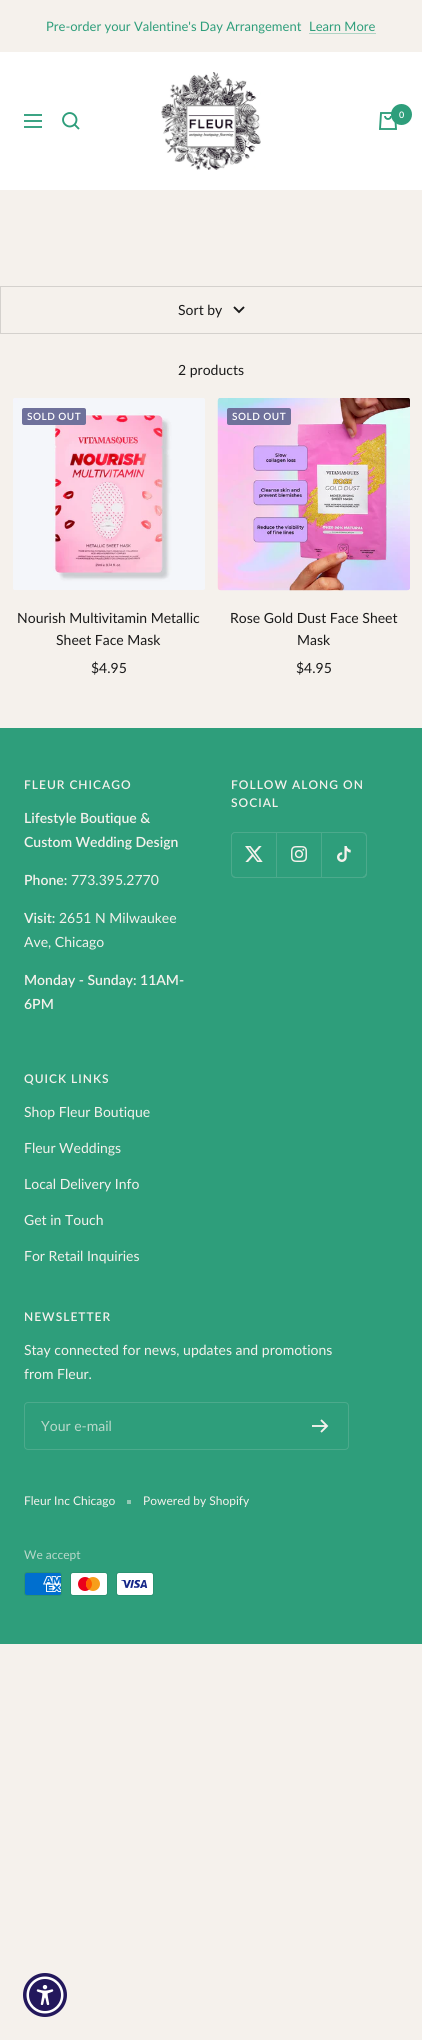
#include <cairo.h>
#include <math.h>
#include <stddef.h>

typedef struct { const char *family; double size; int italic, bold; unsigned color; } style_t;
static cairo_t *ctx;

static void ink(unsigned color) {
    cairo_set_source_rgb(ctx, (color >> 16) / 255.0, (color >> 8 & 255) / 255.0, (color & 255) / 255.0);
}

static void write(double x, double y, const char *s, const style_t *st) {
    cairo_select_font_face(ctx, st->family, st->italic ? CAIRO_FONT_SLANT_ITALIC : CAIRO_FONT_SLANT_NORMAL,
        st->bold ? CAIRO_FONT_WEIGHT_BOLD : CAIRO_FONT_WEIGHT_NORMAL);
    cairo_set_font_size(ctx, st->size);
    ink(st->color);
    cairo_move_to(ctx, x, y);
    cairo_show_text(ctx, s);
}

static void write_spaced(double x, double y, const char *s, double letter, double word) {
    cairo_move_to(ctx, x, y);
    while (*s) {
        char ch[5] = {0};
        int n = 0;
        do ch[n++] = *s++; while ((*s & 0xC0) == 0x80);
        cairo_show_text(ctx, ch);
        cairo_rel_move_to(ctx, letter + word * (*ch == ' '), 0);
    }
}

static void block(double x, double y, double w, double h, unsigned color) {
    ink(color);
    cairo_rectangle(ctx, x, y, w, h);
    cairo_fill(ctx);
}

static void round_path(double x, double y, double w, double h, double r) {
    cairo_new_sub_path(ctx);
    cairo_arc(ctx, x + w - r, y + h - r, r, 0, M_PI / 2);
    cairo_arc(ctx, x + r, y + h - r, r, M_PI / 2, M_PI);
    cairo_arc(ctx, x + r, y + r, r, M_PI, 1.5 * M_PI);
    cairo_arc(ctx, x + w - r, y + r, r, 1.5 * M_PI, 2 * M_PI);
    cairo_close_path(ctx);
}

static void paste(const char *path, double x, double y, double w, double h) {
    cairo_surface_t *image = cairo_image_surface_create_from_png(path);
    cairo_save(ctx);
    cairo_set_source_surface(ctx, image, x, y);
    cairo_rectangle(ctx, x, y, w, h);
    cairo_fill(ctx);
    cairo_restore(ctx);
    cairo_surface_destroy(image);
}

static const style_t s1 = {"Lato", 13, 0, 0, 0x2e9e7b};
static const style_t s2 = {"Lato SemiBold", 9, 0, 0, 0xffffff};
static const style_t s3 = {"Lato", 14, 0, 0, 0x1a1a1a};
static const style_t s4 = {"Lato SemiBold", 14, 0, 0, 0xf5f1ec};
static const style_t s5 = {"Lato", 14, 0, 0, 0xf5f1ec};
static const style_t s6 = {"Lato", 14, 0, 0, 0xb9d8ca};
static const style_t s7 = {"Lato", 12, 0, 0, 0xf5f1ec};
static const style_t s8 = {"Lato", 12, 0, 0, 0xb9d8ca};

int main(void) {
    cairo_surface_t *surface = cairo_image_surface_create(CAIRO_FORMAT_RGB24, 422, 2040);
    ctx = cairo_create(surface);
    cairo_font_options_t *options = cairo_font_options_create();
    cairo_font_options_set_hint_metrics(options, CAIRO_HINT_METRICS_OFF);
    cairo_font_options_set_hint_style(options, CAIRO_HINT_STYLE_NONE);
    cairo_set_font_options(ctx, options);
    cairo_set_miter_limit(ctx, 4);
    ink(0xf5f1ec);
    cairo_paint(ctx);
    write(46, 31, "Pre-order your Valentine's Day Arrangement", &s1);
    write(309, 31, "Learn More", &s1);
    block(309, 33, 67, 1, 0xafd4c4);
    block(0, 52, 422, 138, 0xffffff);
    cairo_new_path(ctx);
    cairo_move_to(ctx, 24, 115);
    cairo_line_to(ctx, 42, 115);
    cairo_move_to(ctx, 24, 127);
    cairo_line_to(ctx, 42, 127);
    cairo_close_path(ctx);
    cairo_move_to(ctx, 24, 121);
    cairo_line_to(ctx, 42, 121);
    cairo_close_path(ctx);
    cairo_move_to(ctx, 74.5, 124.5);
    cairo_curve_to(ctx, 80.5, 118, 71.5, 109, 65, 115);
    cairo_curve_to(ctx, 59, 121.5, 68, 130.5, 74.5, 124.5);
    cairo_close_path(ctx);
    cairo_move_to(ctx, 74.5, 124.5);
    cairo_line_to(ctx, 79, 129);
    ink(0x2e9e7b);
    cairo_set_line_width(ctx, 1.9);
    cairo_stroke(ctx);
    paste("pic1.png", 161, 72, 100, 98);
    paste("pic2.png", 379, 112, 18, 18);
    cairo_arc(ctx, 401.5, 114.5, 10.5, 0, 2 * M_PI);
    cairo_fill(ctx);
    write(399, 118, "0", &s2);
    block(0, 286, 422, 1, 0xd4d1cd);
    block(0, 333, 422, 1, 0xd4d1cd);
    block(0, 286, 1, 48, 0xd4d1cd);
    write(178, 315, "Sort by", &s3);
    cairo_new_path(ctx);
    cairo_move_to(ctx, 234, 307);
    cairo_line_to(ctx, 239, 312);
    cairo_line_to(ctx, 244, 307);
    cairo_stroke(ctx);
    write(178, 375, "2 products", &s3);
    paste("pic3.png", 13, 398, 192, 192);
    ink(0x6f719b);
    round_path(22, 408, 64, 17, 2);
    cairo_fill(ctx);
    cairo_select_font_face(ctx, "Lato SemiBold", CAIRO_FONT_SLANT_NORMAL, CAIRO_FONT_WEIGHT_NORMAL);
    cairo_set_font_size(ctx, 10);
    ink(0xffffff);
    write_spaced(27, 420, "SOLD OUT", 0.5, 0);
    write(17, 623, "Nourish Multivitamin Metallic", &s3);
    write(56, 645, "Sheet Face Mask", &s3);
    write(91, 673, "$4.95", &s3);
    paste("pic4.png", 217, 398, 193, 193);
    ink(0x6f719b);
    round_path(227, 408, 64, 17, 2);
    cairo_fill(ctx);
    cairo_select_font_face(ctx, "Lato SemiBold", CAIRO_FONT_SLANT_NORMAL, CAIRO_FONT_WEIGHT_NORMAL);
    cairo_set_font_size(ctx, 10);
    ink(0xffffff);
    write_spaced(232, 420, "SOLD OUT", 0.5, 0);
    write(230, 623, "Rose Gold Dust Face Sheet", &s3);
    write(297, 645, "Mask", &s3);
    write(296, 673, "$4.95", &s3);
    block(0, 728, 422, 916, 0x2e9e7b);
    cairo_select_font_face(ctx, "Lato SemiBold", CAIRO_FONT_SLANT_NORMAL, CAIRO_FONT_WEIGHT_NORMAL);
    cairo_set_font_size(ctx, 12);
    ink(0xf5f1ec);
    write_spaced(24, 789, "FLEUR CHICAGO", 1, 0);
    write(24, 823, "Lifestyle Boutique &", &s4);
    write(24, 847, "Custom Wedding Design", &s4);
    write(24, 885, "Phone:", &s4);
    write(71, 885, "773.395.2770", &s5);
    write(24, 923, "Visit:", &s4);
    write(59, 923, "2651 N Milwaukee", &s5);
    write(24, 947, "Ave, Chicago", &s5);
    write(24, 985, "Monday - Sunday: 11AM-", &s4);
    write(24, 1009, "6PM", &s4);
    cairo_set_font_size(ctx, 12);
    write_spaced(231, 789, "FOLLOW ALONG ON", 1, 0);
    write_spaced(231, 807, "SOCIAL", 1, 0);
    ink(0x4caa8c);
    cairo_new_path(ctx);
    cairo_move_to(ctx, 233, 876);
    cairo_curve_to(ctx, 233, 877, 235, 878, 236, 878);
    cairo_line_to(ctx, 277, 878);
    cairo_line_to(ctx, 277, 833);
    cairo_line_to(ctx, 276, 833);
    cairo_line_to(ctx, 276, 877);
    cairo_line_to(ctx, 235, 877);
    cairo_close_path(ctx);
    cairo_fill(ctx);
    cairo_new_path(ctx);
    cairo_move_to(ctx, 231, 873);
    cairo_line_to(ctx, 231, 874);
    cairo_curve_to(ctx, 231, 876, 233, 878, 235, 878);
    cairo_line_to(ctx, 276, 878);
    cairo_line_to(ctx, 276, 877);
    cairo_line_to(ctx, 235, 877);
    cairo_curve_to(ctx, 233, 877, 231, 875, 231, 873);
    cairo_close_path(ctx);
    cairo_fill(ctx);
    block(276, 832, 1, 1, 0x4caa8c);
    cairo_new_path(ctx);
    cairo_move_to(ctx, 235, 833);
    cairo_line_to(ctx, 276, 833);
    cairo_line_to(ctx, 276, 832);
    cairo_line_to(ctx, 235, 832);
    cairo_curve_to(ctx, 233, 832, 231, 834, 231, 836);
    cairo_line_to(ctx, 231, 837);
    cairo_curve_to(ctx, 231, 835, 233, 833, 235, 833);
    cairo_close_path(ctx);
    cairo_fill(ctx);
    cairo_new_path(ctx);
    cairo_move_to(ctx, 235, 832);
    cairo_curve_to(ctx, 233, 832, 231, 834, 231, 836);
    cairo_line_to(ctx, 231, 873);
    cairo_curve_to(ctx, 231, 875, 233, 877, 235, 877);
    cairo_line_to(ctx, 236, 877);
    cairo_curve_to(ctx, 234, 877, 232, 875, 232, 873);
    cairo_line_to(ctx, 232, 836);
    cairo_curve_to(ctx, 232, 834, 234, 832, 236, 832);
    cairo_close_path(ctx);
    cairo_fill(ctx);
    paste("pic5.png", 245, 846, 18, 16);
    cairo_new_path(ctx);
    cairo_move_to(ctx, 277, 877);
    cairo_line_to(ctx, 277, 878);
    cairo_line_to(ctx, 322, 878);
    cairo_line_to(ctx, 322, 833);
    cairo_line_to(ctx, 321, 833);
    cairo_line_to(ctx, 321, 877);
    cairo_close_path(ctx);
    cairo_fill(ctx);
    block(276, 832, 46, 1, 0x4caa8c);
    paste("pic6.png", 291, 846, 16, 16);
    cairo_new_path(ctx);
    cairo_move_to(ctx, 322, 877);
    cairo_line_to(ctx, 322, 878);
    cairo_line_to(ctx, 363, 878);
    cairo_curve_to(ctx, 365, 878, 367, 876, 367, 874);
    cairo_line_to(ctx, 367, 837);
    cairo_curve_to(ctx, 367, 836, 366, 834, 365, 834);
    cairo_line_to(ctx, 366, 836);
    cairo_line_to(ctx, 366, 873);
    cairo_curve_to(ctx, 366, 875, 364, 877, 362, 877);
    cairo_close_path(ctx);
    cairo_fill(ctx);
    cairo_new_path(ctx);
    cairo_move_to(ctx, 321, 877);
    cairo_line_to(ctx, 321, 878);
    cairo_line_to(ctx, 362, 878);
    cairo_curve_to(ctx, 364, 878, 366, 876, 366, 874);
    cairo_line_to(ctx, 366, 873);
    cairo_curve_to(ctx, 366, 875, 364, 877, 362, 877);
    cairo_close_path(ctx);
    cairo_fill(ctx);
    cairo_new_path(ctx);
    cairo_move_to(ctx, 362, 877);
    cairo_curve_to(ctx, 368, 877, 367, 872, 367, 867);
    cairo_line_to(ctx, 367, 842);
    cairo_curve_to(ctx, 367, 837, 368, 832, 362, 832);
    cairo_curve_to(ctx, 364, 832, 366, 834, 366, 836);
    cairo_line_to(ctx, 366, 873);
    cairo_curve_to(ctx, 366, 875, 364, 877, 362, 877);
    cairo_close_path(ctx);
    cairo_fill(ctx);
    cairo_new_path(ctx);
    cairo_move_to(ctx, 321, 833);
    cairo_line_to(ctx, 362, 833);
    cairo_curve_to(ctx, 364, 833, 366, 835, 366, 837);
    cairo_line_to(ctx, 366, 836);
    cairo_curve_to(ctx, 366, 834, 364, 832, 362, 832);
    cairo_line_to(ctx, 321, 832);
    cairo_close_path(ctx);
    cairo_fill(ctx);
    paste("pic7.png", 337, 846, 14, 16);
    ink(0xf5f1ec);
    write_spaced(24, 1083, "QUICK LINKS", 1, 0);
    write(24, 1117, "Shop Fleur Boutique", &s5);
    write(24, 1153, "Fleur Weddings", &s5);
    write(24, 1189, "Local Delivery Info", &s5);
    write(24, 1225, "Get in Touch", &s5);
    write(24, 1261, "For Retail Inquiries", &s5);
    cairo_select_font_face(ctx, "Lato SemiBold", CAIRO_FONT_SLANT_NORMAL, CAIRO_FONT_WEIGHT_NORMAL);
    cairo_set_font_size(ctx, 12);
    write_spaced(24, 1321, "NEWSLETTER", 1, 0);
    write(24, 1355, "Stay connected for news, updates and promotions", &s5);
    write(24, 1379, "from Fleur.", &s5);
    round_path(24.5, 1402.5, 324, 47, 3.5);
    ink(0x4caa8c);
    cairo_set_line_width(ctx, 1);
    cairo_stroke(ctx);
    write(41, 1431, "Your e-mail", &s6);
    cairo_new_path(ctx);
    cairo_move_to(ctx, 312, 1426);
    cairo_line_to(ctx, 327, 1426);
    cairo_move_to(ctx, 321, 1420);
    cairo_line_to(ctx, 327, 1426);
    cairo_line_to(ctx, 321, 1432);
    ink(0xf5f1ec);
    cairo_set_line_width(ctx, 1.9);
    cairo_stroke(ctx);
    write(24, 1505, "Fleur Inc Chicago", &s7);
    block(127, 1500, 4, 4, 0x92c8b4);
    write(143, 1505, "Powered by Shopify", &s7);
    write(24, 1559, "We accept", &s8);
    paste("pic8.png", 24, 1572, 38, 24);
    paste("pic9.png", 70, 1572, 38, 24);
    paste("pic10.png", 116, 1572, 38, 24);
    ink(0x23185c);
    cairo_arc(ctx, 45, 1995, 22, 0, 2 * M_PI);
    cairo_fill(ctx);
    ink(0xffffff);
    cairo_arc(ctx, 45, 1995, 18.5, 0, 2 * M_PI);
    cairo_fill(ctx);
    ink(0x23185c);
    cairo_arc(ctx, 45, 1995, 16, 0, 2 * M_PI);
    cairo_fill(ctx);
    paste("pic11.png", 36, 1985, 18, 20);
    cairo_surface_write_to_png(surface, "screenshot.png");
    cairo_font_options_destroy(options);
    cairo_destroy(ctx);
    cairo_surface_destroy(surface);
    return 0;
}
